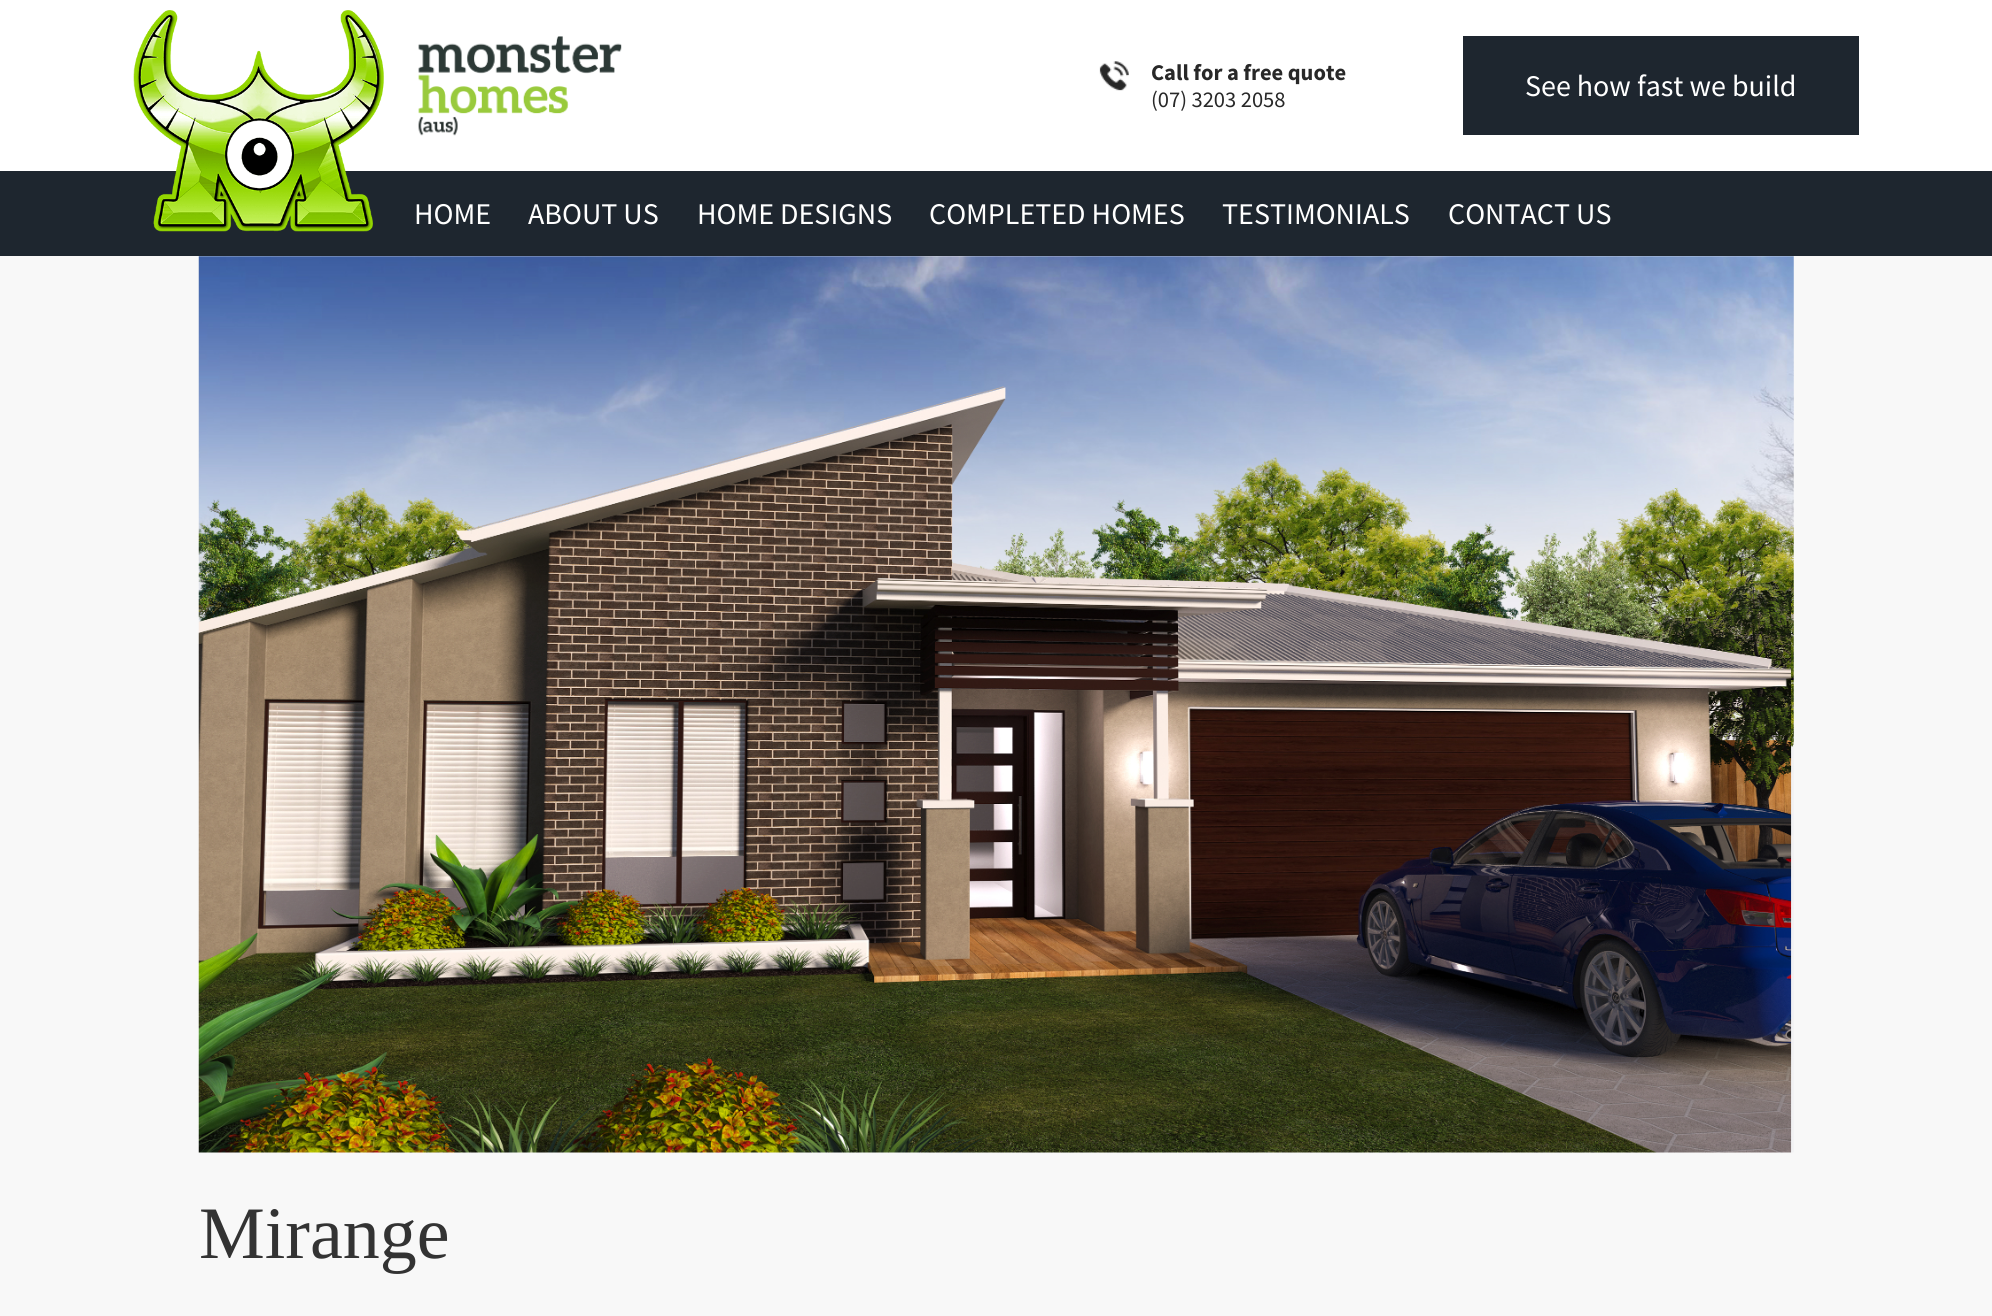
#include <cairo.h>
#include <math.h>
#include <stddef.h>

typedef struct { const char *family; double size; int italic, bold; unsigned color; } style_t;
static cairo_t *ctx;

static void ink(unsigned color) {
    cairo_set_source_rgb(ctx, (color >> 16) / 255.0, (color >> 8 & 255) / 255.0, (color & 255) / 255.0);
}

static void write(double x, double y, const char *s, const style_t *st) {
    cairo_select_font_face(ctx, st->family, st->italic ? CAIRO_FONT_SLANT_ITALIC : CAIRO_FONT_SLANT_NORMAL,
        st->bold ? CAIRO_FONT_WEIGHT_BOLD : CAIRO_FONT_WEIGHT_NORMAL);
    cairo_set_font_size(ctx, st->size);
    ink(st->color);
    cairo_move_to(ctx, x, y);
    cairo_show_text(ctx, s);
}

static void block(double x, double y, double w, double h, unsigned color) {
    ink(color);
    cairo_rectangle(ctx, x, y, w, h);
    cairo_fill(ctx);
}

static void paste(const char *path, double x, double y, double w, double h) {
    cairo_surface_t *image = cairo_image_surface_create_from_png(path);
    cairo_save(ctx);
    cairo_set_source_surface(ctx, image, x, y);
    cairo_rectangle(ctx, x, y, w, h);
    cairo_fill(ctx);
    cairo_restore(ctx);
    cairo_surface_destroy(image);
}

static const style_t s1 = {"Source Sans Pro", 22.5, 0, 1, 0x282828};
static const style_t s2 = {"Source Sans Pro", 22.5, 0, 0, 0x282828};
static const style_t s3 = {"Source Sans Pro", 30, 0, 0, 0xffffff};
static const style_t s4 = {"Liberation Serif", 74, 0, 0, 0x333333};

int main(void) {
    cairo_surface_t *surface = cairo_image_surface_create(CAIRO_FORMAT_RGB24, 1992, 1316);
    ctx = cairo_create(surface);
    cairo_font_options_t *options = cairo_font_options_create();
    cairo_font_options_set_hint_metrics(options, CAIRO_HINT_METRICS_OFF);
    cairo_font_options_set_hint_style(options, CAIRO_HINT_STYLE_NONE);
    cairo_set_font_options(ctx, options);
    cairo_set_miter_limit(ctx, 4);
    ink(0xffffff);
    cairo_paint(ctx);
    block(0, 171, 1992, 85, 0x1e262f);
    paste("pic1.png", 133, 10, 251, 222);
    paste("pic2.png", 418, 36, 204, 100);
    paste("pic3.png", 1099, 61, 30, 30);
    write(1151, 80, "Call for a free quote", &s1);
    write(1151, 107, "(07) 3203 2058", &s2);
    block(1463, 36, 396, 99, 0x1e262f);
    write(1525, 96, "See how fast we build", &s3);
    write(414, 224, "HOME", &s3);
    write(528, 224, "ABOUT US", &s3);
    write(697, 224, "HOME DESIGNS", &s3);
    write(929, 224, "COMPLETED HOMES", &s3);
    write(1222, 224, "TESTIMONIALS", &s3);
    write(1448, 224, "CONTACT US", &s3);
    block(0, 256, 1992, 1060, 0xf8f8f8);
    paste("pic4.png", 198, 256, 1596, 897);
    write(199, 1258, "Mirange", &s4);
    cairo_surface_write_to_png(surface, "screenshot.png");
    cairo_font_options_destroy(options);
    cairo_destroy(ctx);
    cairo_surface_destroy(surface);
    return 0;
}
